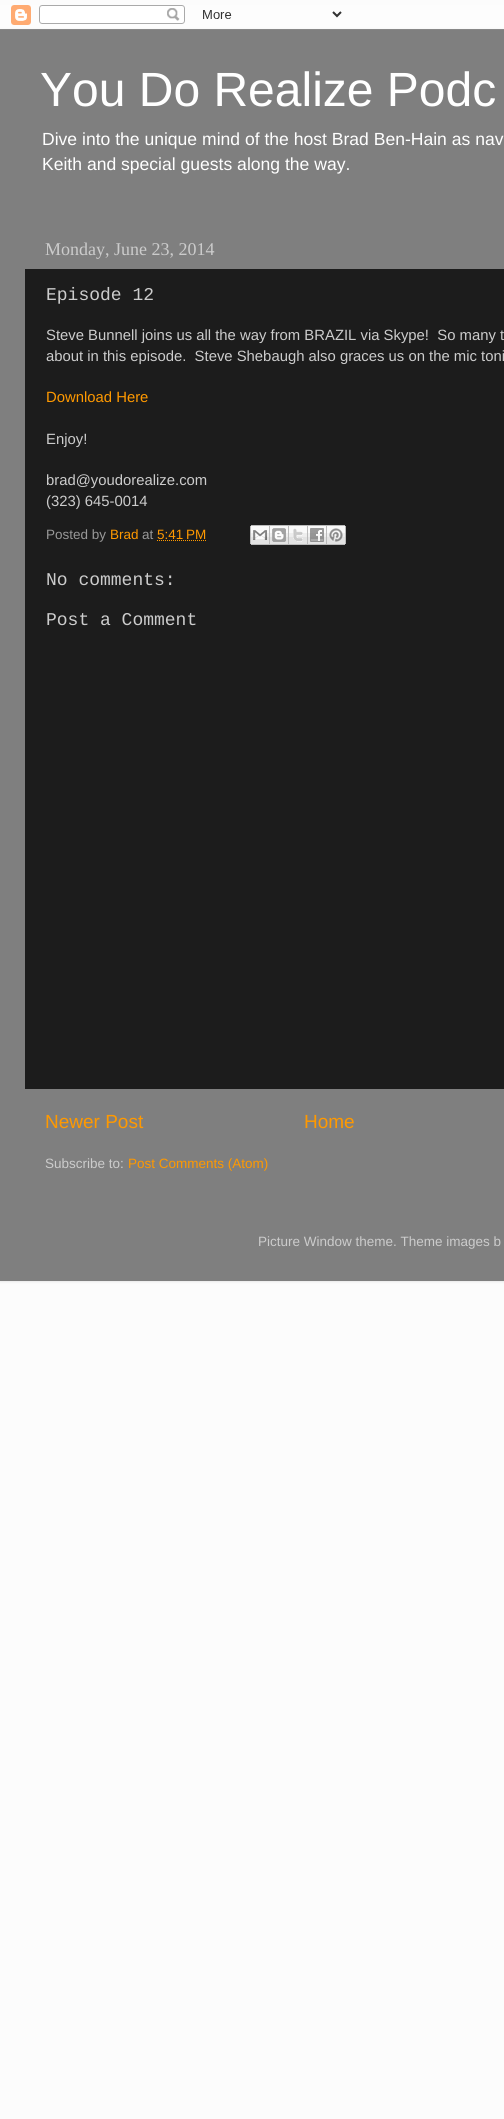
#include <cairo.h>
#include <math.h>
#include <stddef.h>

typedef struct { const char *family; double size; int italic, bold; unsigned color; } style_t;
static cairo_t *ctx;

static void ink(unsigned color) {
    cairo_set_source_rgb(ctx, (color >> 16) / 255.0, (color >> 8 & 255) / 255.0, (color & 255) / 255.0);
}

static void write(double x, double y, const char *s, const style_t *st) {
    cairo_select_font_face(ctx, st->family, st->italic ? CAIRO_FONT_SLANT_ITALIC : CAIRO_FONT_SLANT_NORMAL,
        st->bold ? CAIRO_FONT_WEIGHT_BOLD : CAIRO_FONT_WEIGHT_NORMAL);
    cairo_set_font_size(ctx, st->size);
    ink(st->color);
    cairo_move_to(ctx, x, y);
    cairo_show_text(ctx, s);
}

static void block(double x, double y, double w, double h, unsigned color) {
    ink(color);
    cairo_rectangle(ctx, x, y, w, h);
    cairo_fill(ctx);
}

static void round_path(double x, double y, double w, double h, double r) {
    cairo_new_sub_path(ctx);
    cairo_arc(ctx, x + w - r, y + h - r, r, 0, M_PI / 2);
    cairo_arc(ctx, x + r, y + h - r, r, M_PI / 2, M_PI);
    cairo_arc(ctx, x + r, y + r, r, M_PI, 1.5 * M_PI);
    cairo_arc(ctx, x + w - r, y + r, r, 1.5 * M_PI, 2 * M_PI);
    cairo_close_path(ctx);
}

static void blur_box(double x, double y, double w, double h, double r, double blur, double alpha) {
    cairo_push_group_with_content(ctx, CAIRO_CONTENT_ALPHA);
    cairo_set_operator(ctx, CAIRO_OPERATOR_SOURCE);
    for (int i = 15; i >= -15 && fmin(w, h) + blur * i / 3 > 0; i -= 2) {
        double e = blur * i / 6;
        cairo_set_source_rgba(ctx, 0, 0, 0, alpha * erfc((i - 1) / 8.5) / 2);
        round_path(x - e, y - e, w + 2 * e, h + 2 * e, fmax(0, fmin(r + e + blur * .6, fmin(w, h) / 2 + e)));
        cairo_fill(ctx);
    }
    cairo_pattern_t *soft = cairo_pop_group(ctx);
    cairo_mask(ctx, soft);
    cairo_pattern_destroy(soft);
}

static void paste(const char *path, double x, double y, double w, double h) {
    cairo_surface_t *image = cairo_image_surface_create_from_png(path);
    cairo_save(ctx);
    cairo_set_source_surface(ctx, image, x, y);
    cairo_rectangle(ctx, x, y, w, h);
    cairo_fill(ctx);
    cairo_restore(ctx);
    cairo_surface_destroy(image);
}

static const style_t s1 = {"Liberation Sans", 48, 0, 0, 0xffffff};
static const style_t s2 = {"Liberation Sans", 17.55, 0, 0, 0xffffff};
static const style_t s3 = {"Liberation Serif", 18, 0, 0, 0xcccccc};
static const style_t s4 = {"Liberation Mono", 18, 0, 0, 0xcccccc};
static const style_t s5 = {"Liberation Sans", 14.85, 0, 0, 0xcccccc};
static const style_t s6 = {"Liberation Sans", 14.85, 0, 0, 0xff9900};
static const style_t s7 = {"Liberation Sans", 13.5, 0, 0, 0x999999};
static const style_t s8 = {"Liberation Sans", 13.5, 0, 0, 0xff9900};
static const style_t s9 = {"Liberation Sans", 19, 0, 0, 0xff9900};
static const style_t s10 = {"Liberation Sans", 13.5, 0, 0, 0xcccccc};

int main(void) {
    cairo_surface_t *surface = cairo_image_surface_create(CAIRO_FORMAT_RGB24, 504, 2119);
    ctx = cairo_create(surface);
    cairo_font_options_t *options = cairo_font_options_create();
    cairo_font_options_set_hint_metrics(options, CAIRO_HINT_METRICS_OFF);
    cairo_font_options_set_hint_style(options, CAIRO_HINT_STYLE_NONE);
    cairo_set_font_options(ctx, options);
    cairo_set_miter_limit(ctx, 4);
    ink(0xfcfcfc);
    cairo_paint(ctx);
    ink(0x000000);
    blur_box(0, 30, 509, 1251, 0, 1.5, 0.15);
    paste("pic1.png", 0, 5, 504, 25);
    block(0, 30, 504, 1251, 0x7f7f7f);
    write(40, 106, "You Do Realize Podc", &s1);
    write(42, 145, "Dive into the unique mind of the host Brad Ben-Hain as nav", &s2);
    write(42, 170, "Keith and special guests along the way.", &s2);
    write(45, 255, "Monday, June 23, 2014", &s3);
    block(25, 269, 479, 820, 0x1c1c1c);
    write(46, 300, "Episode 12", &s4);
    write(46, 340, "Steve Bunnell joins us all the way from BRAZIL via Skype!  So many t", &s5);
    write(46, 361, "about in this episode.  Steve Shebaugh also graces us on the mic toni", &s5);
    write(46, 402, "Download Here", &s6);
    write(46, 444, "Enjoy!", &s5);
    write(46, 485, "brad@youdorealize.com", &s5);
    write(46, 506, "(323) 645-0014", &s5);
    write(46, 539, "Posted by", &s7);
    write(110, 539, "Brad", &s8);
    write(142, 539, "at", &s7);
    write(157, 539, "5:41 PM", &s8);
    cairo_new_path(ctx);
    cairo_move_to(ctx, 157, 540.5);
    cairo_line_to(ctx, 206.5, 540.5);
    cairo_set_line_width(ctx, 1);
    cairo_set_dash(ctx, (double[]){1, 1}, 2, 0);
    cairo_stroke(ctx);
    paste("pic2.png", 250, 525, 20, 20);
    paste("pic3.png", 270, 525, 19, 20);
    paste("pic4.png", 289, 525, 19, 20);
    paste("pic5.png", 308, 525, 19, 20);
    paste("pic6.png", 327, 525, 19, 20);
    write(46, 585, "No comments:", &s4);
    write(46, 625, "Post a Comment", &s4);
    write(45, 1128, "Newer Post", &s9);
    write(304, 1128, "Home", &s9);
    write(45, 1168, "Subscribe to:", &s10);
    write(128, 1168, "Post Comments (Atom)", &s8);
    write(258, 1246, "Picture Window theme. Theme images b", &s10);
    cairo_surface_write_to_png(surface, "screenshot.png");
    cairo_font_options_destroy(options);
    cairo_destroy(ctx);
    cairo_surface_destroy(surface);
    return 0;
}
